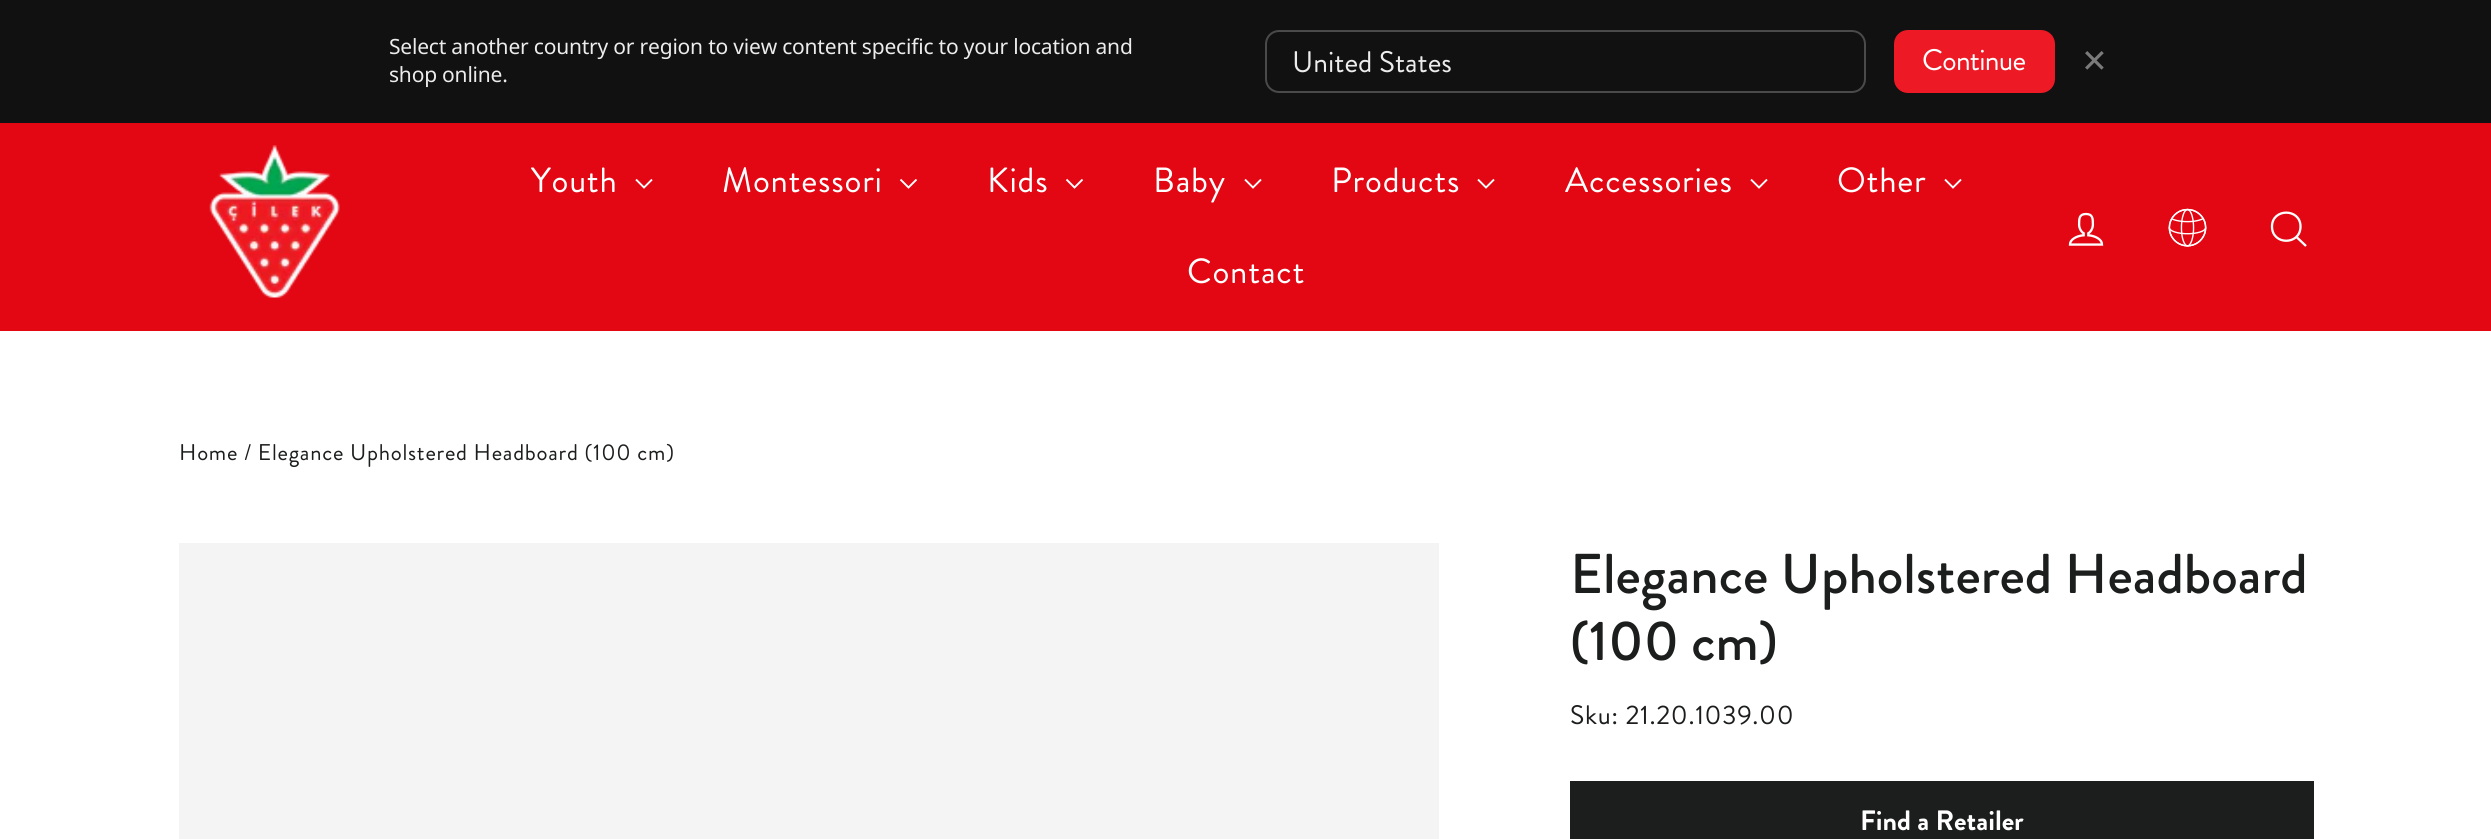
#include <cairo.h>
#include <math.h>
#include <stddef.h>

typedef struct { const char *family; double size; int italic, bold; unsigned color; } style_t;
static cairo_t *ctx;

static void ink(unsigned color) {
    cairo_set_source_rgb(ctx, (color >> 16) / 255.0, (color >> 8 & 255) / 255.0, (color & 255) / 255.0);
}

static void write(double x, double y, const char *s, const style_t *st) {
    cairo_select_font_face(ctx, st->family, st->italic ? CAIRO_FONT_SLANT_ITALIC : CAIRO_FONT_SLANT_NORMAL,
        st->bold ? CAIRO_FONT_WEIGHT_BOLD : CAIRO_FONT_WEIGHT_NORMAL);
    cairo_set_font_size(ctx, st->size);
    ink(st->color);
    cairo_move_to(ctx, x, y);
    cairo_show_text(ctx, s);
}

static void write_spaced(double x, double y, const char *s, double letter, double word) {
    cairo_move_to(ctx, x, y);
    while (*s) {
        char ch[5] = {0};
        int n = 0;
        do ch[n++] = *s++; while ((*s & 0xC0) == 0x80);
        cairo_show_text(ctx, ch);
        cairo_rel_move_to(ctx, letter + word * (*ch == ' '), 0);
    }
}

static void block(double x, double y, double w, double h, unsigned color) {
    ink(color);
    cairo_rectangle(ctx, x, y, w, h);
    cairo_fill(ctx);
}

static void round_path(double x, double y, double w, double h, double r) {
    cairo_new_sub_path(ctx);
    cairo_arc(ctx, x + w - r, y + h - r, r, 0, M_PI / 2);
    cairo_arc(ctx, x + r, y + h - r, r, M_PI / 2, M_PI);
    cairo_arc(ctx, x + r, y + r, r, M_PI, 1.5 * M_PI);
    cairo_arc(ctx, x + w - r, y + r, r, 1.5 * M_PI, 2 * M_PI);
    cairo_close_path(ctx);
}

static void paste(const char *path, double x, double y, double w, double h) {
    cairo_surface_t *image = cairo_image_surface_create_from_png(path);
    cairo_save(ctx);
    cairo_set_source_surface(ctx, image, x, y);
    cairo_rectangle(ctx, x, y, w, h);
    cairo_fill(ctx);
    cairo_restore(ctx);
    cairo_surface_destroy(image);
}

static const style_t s1 = {"Brandon Grotesque", 29.75, 0, 0, 0xececec};
static const style_t s2 = {"DejaVu Sans", 32, 0, 0, 0x7b7b7b};
static const style_t s3 = {"Brandon Grotesque Medium", 56, 0, 0, 0x1c1d1d};
static const style_t s4 = {"Brandon Grotesque", 28, 0, 1, 0xffffff};

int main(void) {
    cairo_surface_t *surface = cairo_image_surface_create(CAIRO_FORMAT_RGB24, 2491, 839);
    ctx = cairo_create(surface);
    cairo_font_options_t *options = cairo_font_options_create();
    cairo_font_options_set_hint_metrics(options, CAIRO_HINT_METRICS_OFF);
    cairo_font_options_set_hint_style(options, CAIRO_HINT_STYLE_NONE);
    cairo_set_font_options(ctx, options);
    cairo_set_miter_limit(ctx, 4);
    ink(0xffffff);
    cairo_paint(ctx);
    block(0, 0, 2491, 123, 0x111111);
    cairo_select_font_face(ctx, "Noto Sans", CAIRO_FONT_SLANT_NORMAL, CAIRO_FONT_WEIGHT_NORMAL);
    cairo_set_font_size(ctx, 21);
    ink(0xececec);
    write_spaced(389, 54, "Select another country or region to view content specific to your location and", -0.2, 0);
    write_spaced(389, 82, "shop online.", -0.2, 0);
    round_path(1266, 31, 599, 61, 13);
    ink(0x4a4a4a);
    cairo_stroke(ctx);
    write(1292, 72, "United States", &s1);
    ink(0xed1a25);
    round_path(1894, 30, 161, 63, 14);
    cairo_fill(ctx);
    ink(0xffffff);
    write_spaced(1922, 70, "Continue", -0.75, 0);
    write(2081, 72, "✕", &s2);
    block(0, 123, 2491, 208, 0xe30613);
    paste("pic1.png", 209, 145, 131, 153);
    cairo_select_font_face(ctx, "Brandon Grotesque", CAIRO_FONT_SLANT_NORMAL, CAIRO_FONT_WEIGHT_NORMAL);
    cairo_set_font_size(ctx, 35);
    ink(0xffffff);
    write_spaced(531, 192, "Youth", 0.75, 0);
    cairo_new_path(ctx);
    cairo_move_to(ctx, 636, 179.5);
    cairo_line_to(ctx, 644, 187.5);
    cairo_line_to(ctx, 652, 179.5);
    cairo_set_line_width(ctx, 1.9);
    cairo_stroke(ctx);
    write_spaced(722, 192, "Montessori", 0.75, 0);
    cairo_new_path(ctx);
    cairo_move_to(ctx, 900.5, 179.5);
    cairo_line_to(ctx, 908.5, 187.5);
    cairo_line_to(ctx, 916.5, 179.5);
    cairo_stroke(ctx);
    write_spaced(987, 192, "Kids", 0.75, 0);
    cairo_new_path(ctx);
    cairo_move_to(ctx, 1066.5, 179.5);
    cairo_line_to(ctx, 1074.5, 187.5);
    cairo_line_to(ctx, 1082.5, 179.5);
    cairo_stroke(ctx);
    write_spaced(1153, 192, "Baby", 0.75, 0);
    cairo_new_path(ctx);
    cairo_move_to(ctx, 1245, 179.5);
    cairo_line_to(ctx, 1253, 187.5);
    cairo_line_to(ctx, 1261, 179.5);
    cairo_stroke(ctx);
    write_spaced(1331, 192, "Products", 0.75, 0);
    cairo_new_path(ctx);
    cairo_move_to(ctx, 1478, 179.5);
    cairo_line_to(ctx, 1486, 187.5);
    cairo_line_to(ctx, 1494, 179.5);
    cairo_stroke(ctx);
    write_spaced(1565, 192, "Accessories", 0.75, 0);
    cairo_new_path(ctx);
    cairo_move_to(ctx, 1751, 179.5);
    cairo_line_to(ctx, 1759, 187.5);
    cairo_line_to(ctx, 1767, 179.5);
    cairo_stroke(ctx);
    write_spaced(1837, 192, "Other", 0.75, 0);
    cairo_new_path(ctx);
    cairo_move_to(ctx, 1945, 179.5);
    cairo_line_to(ctx, 1953, 187.5);
    cairo_line_to(ctx, 1961, 179.5);
    cairo_stroke(ctx);
    write_spaced(1187, 283, "Contact", 0.75, 0);
    paste("pic2.png", 2068, 212, 36, 34);
    paste("pic3.png", 2168, 208, 39, 39);
    cairo_new_path(ctx);
    cairo_move_to(ctx, 2300.5, 226.5);
    cairo_curve_to(ctx, 2300.5, 245.5, 2272, 245.5, 2272, 226.5);
    cairo_curve_to(ctx, 2272, 208, 2300.5, 208, 2300.5, 226.5);
    cairo_close_path(ctx);
    cairo_move_to(ctx, 2306, 246);
    cairo_line_to(ctx, 2296.5, 237);
    cairo_set_line_width(ctx, 2.3);
    cairo_stroke(ctx);
    cairo_set_font_size(ctx, 22.75);
    ink(0x1c1d1d);
    write_spaced(179, 460, "Home / Elegance Upholstered Headboard (100 cm)", 0.75, 0);
    block(179, 543, 1260, 296, 0xf4f4f4);
    write(1570, 593, "Elegance Upholstered Headboard", &s3);
    write(1570, 660, "(100 cm)", &s3);
    cairo_select_font_face(ctx, "Brandon Grotesque", CAIRO_FONT_SLANT_NORMAL, CAIRO_FONT_WEIGHT_NORMAL);
    cairo_set_font_size(ctx, 26.75);
    write_spaced(1570, 724, "Sku: 21.20.1039.00", 0.7, 0);
    block(1570, 781, 744, 58, 0x1c1d1d);
    write(1860, 830, "Find a Retailer", &s4);
    cairo_surface_write_to_png(surface, "screenshot.png");
    cairo_font_options_destroy(options);
    cairo_destroy(ctx);
    cairo_surface_destroy(surface);
    return 0;
}
